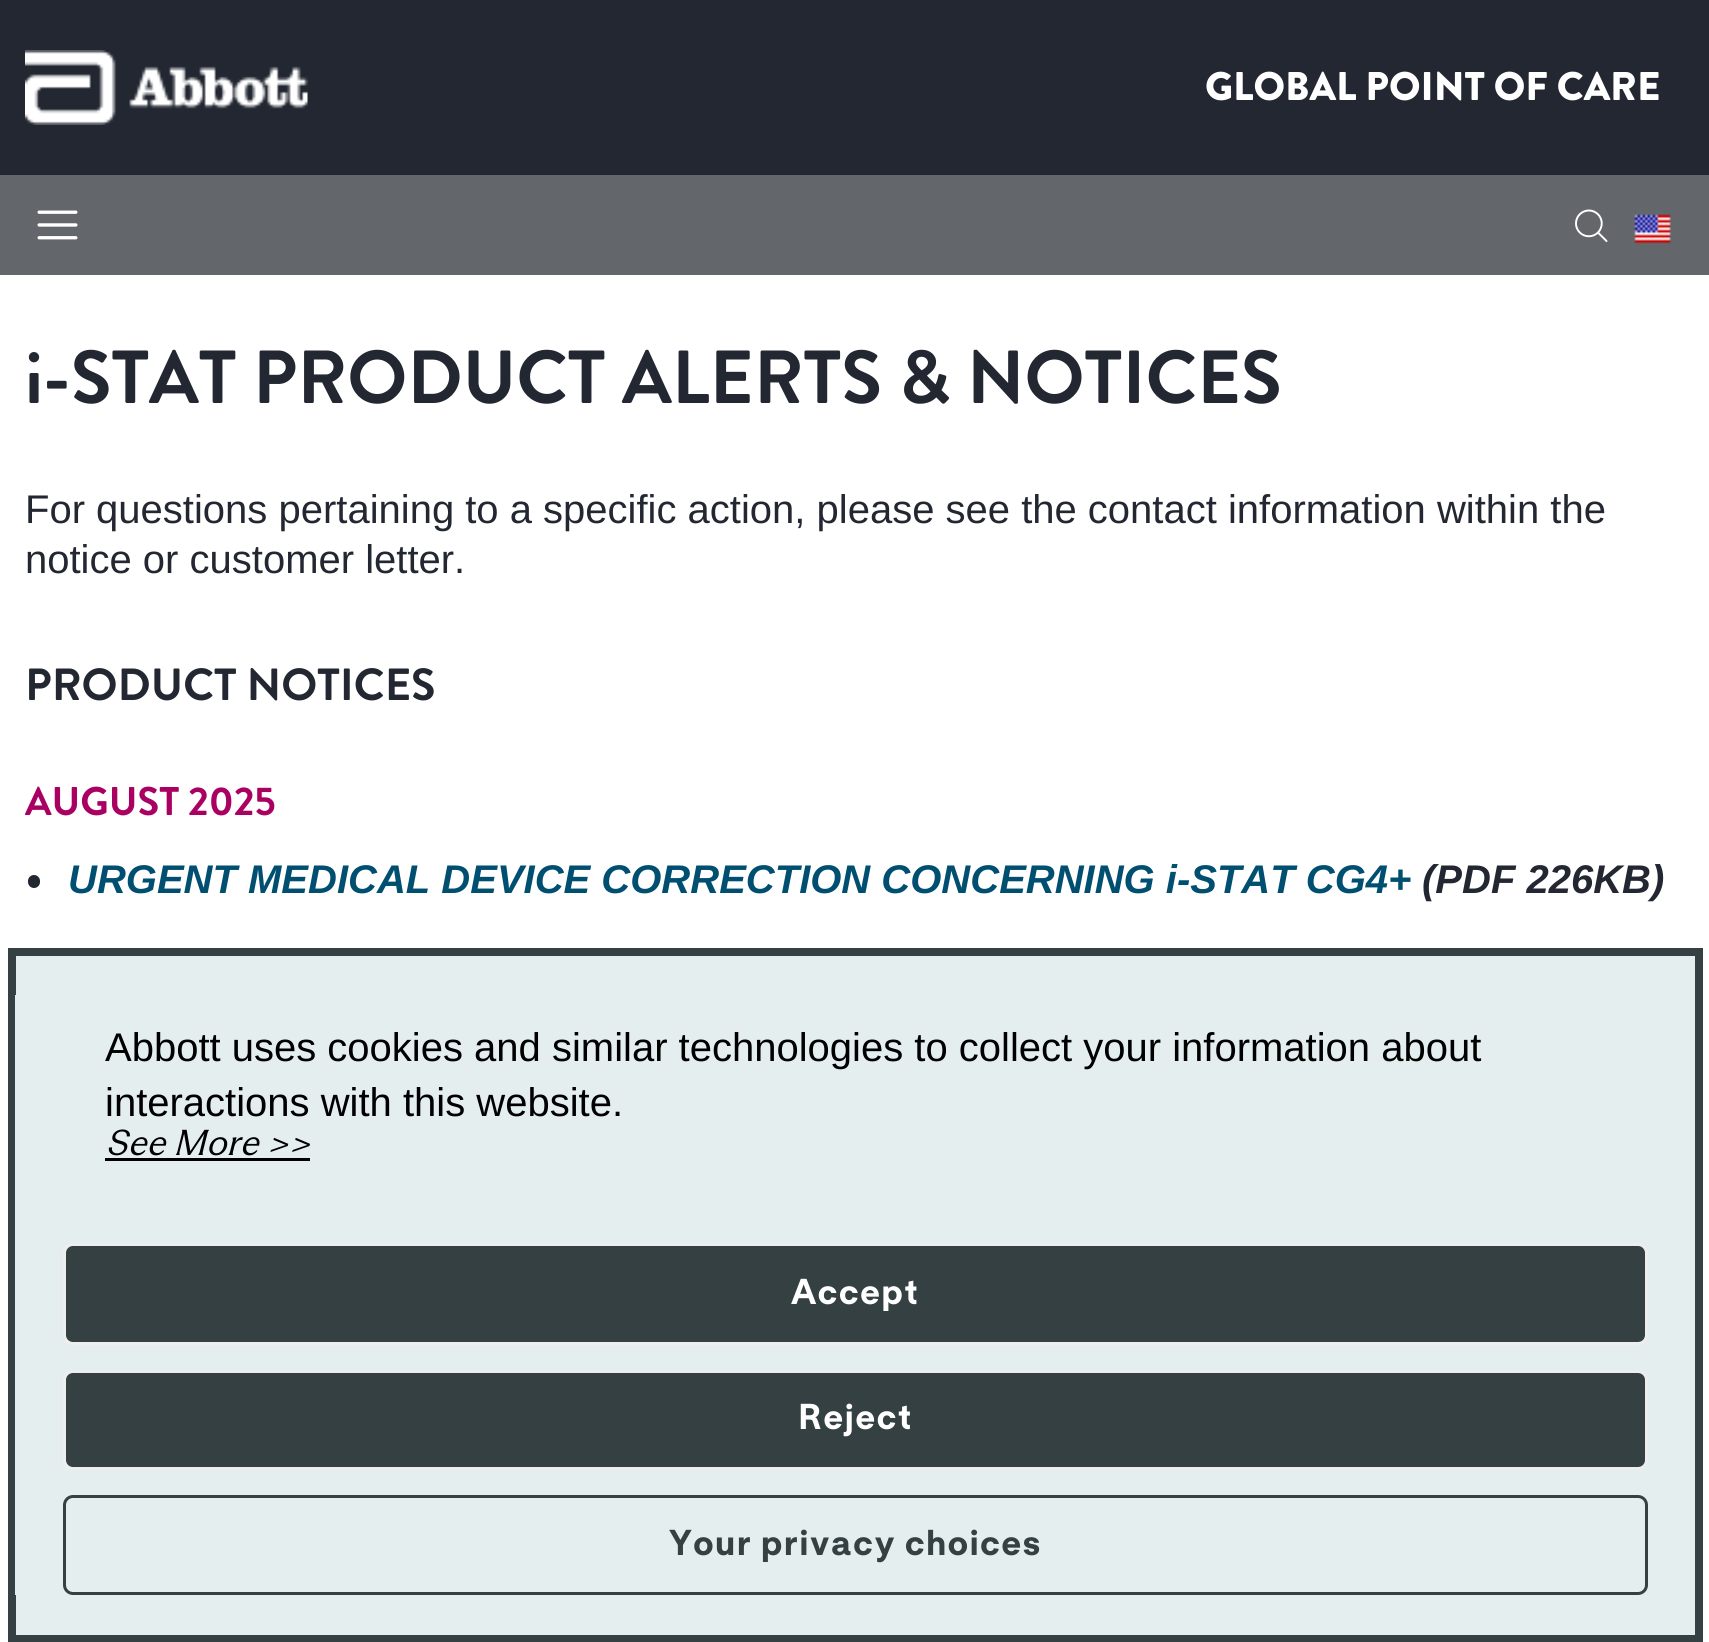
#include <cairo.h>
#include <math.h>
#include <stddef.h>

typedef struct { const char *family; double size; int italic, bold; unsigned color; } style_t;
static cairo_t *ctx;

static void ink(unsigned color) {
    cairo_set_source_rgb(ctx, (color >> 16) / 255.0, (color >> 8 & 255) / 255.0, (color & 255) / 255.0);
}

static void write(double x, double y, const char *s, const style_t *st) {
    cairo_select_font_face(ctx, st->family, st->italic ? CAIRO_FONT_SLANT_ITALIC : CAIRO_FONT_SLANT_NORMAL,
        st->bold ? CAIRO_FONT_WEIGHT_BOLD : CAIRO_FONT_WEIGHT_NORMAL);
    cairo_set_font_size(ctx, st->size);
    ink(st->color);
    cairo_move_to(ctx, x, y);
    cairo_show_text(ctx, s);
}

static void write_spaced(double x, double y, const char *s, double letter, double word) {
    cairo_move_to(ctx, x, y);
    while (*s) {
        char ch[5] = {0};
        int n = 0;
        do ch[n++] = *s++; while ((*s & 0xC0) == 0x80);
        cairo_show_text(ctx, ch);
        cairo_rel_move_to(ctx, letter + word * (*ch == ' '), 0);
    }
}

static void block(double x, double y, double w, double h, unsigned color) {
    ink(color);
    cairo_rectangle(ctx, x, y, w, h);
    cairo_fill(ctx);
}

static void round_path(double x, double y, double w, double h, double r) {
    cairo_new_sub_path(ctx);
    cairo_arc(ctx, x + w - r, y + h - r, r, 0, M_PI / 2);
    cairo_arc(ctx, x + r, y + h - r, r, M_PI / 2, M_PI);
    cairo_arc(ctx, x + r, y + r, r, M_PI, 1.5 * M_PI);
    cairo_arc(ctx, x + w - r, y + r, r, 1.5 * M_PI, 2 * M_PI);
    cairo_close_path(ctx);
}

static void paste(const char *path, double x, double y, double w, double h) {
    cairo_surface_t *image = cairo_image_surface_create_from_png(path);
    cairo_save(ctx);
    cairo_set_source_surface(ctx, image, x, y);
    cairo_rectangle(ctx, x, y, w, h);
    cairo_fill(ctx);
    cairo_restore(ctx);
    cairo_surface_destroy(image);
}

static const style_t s1 = {"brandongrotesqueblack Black", 40, 0, 0, 0xffffff};
static const style_t s2 = {"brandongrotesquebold", 75, 0, 1, 0x222731};
static const style_t s3 = {"Liberation Sans", 40, 0, 0, 0x222731};
static const style_t s4 = {"brandongrotesquebold", 45, 0, 1, 0x222731};
static const style_t s5 = {"brandongrotesquebold", 40, 0, 1, 0xaa0061};
static const style_t s6 = {"Liberation Sans", 40, 1, 1, 0x004f71};
static const style_t s7 = {"Liberation Sans", 40, 1, 1, 0x222731};
static const style_t s8 = {"Liberation Sans", 40, 0, 0, 0x000000};
static const style_t s9 = {"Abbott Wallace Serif", 35, 1, 0, 0x000000};

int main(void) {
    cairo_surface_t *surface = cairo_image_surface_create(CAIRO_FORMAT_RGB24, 1709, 1642);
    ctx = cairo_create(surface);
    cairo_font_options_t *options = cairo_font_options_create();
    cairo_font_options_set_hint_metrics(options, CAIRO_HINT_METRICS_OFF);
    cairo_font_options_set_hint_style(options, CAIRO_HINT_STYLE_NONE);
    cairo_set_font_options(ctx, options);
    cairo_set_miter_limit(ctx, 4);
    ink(0xffffff);
    cairo_paint(ctx);
    block(0, 0, 1709, 175, 0x222731);
    paste("pic1.png", 25, 50, 283, 75);
    write(1205, 100, "GLOBAL POINT OF CARE", &s1);
    block(0, 175, 1709, 100, 0x63666a);
    paste("pic2.png", 37, 210, 41, 30);
    paste("pic3.png", 1575, 209, 33, 33);
    paste("pic4.png", 1634, 214, 37, 30);
    write(25, 403, "i-STAT PRODUCT ALERTS & NOTICES", &s2);
    write(25, 523, "For questions pertaining to a specific action, please see the contact information within the", &s3);
    write(25, 573, "notice or customer letter.", &s3);
    write(25, 700, "PRODUCT NOTICES", &s4);
    write(25, 815, "AUGUST 2025", &s5);
    ink(0x222731);
    round_path(28, 875, 12, 13, 6);
    cairo_fill(ctx);
    write(68, 893, "URGENT MEDICAL DEVICE CORRECTION CONCERNING i-STAT CG4+", &s6);
    write(1422, 893, "(PDF 226KB)", &s7);
    ink(0xe4eeef);
    cairo_rectangle(ctx, 12, 952, 1687, 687);
    cairo_fill_preserve(ctx);
    ink(0x344042);
    cairo_set_line_width(ctx, 8);
    cairo_stroke(ctx);
    block(15, 995, 1, 600, 0xe4eeef);
    write(105, 1061, "Abbott uses cookies and similar technologies to collect your information about", &s8);
    write(105, 1116, "interactions with this website.", &s8);
    write(105, 1155, "See More >>", &s9);
    block(105, 1158, 205, 3, 0x000000);
    ink(0x344042);
    round_path(64.5, 1244.5, 1582, 99, 8.5);
    cairo_fill_preserve(ctx);
    ink(0xeeeeee);
    cairo_set_line_width(ctx, 3);
    cairo_stroke(ctx);
    cairo_select_font_face(ctx, "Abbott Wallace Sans", CAIRO_FONT_SLANT_NORMAL, CAIRO_FONT_WEIGHT_BOLD);
    ink(0xffffff);
    write_spaced(791, 1304, "Accept", 1.25, 0);
    ink(0x344042);
    round_path(64.5, 1371.5, 1582, 97, 8.5);
    cairo_fill_preserve(ctx);
    ink(0xeeeeee);
    cairo_stroke(ctx);
    ink(0xffffff);
    write_spaced(798, 1429, "Reject", 1.25, 0);
    round_path(64.5, 1496.5, 1582, 97, 8.5);
    ink(0x344042);
    cairo_stroke(ctx);
    write_spaced(669, 1555, "Your privacy choices", 1.25, 0);
    cairo_surface_write_to_png(surface, "screenshot.png");
    cairo_font_options_destroy(options);
    cairo_destroy(ctx);
    cairo_surface_destroy(surface);
    return 0;
}
